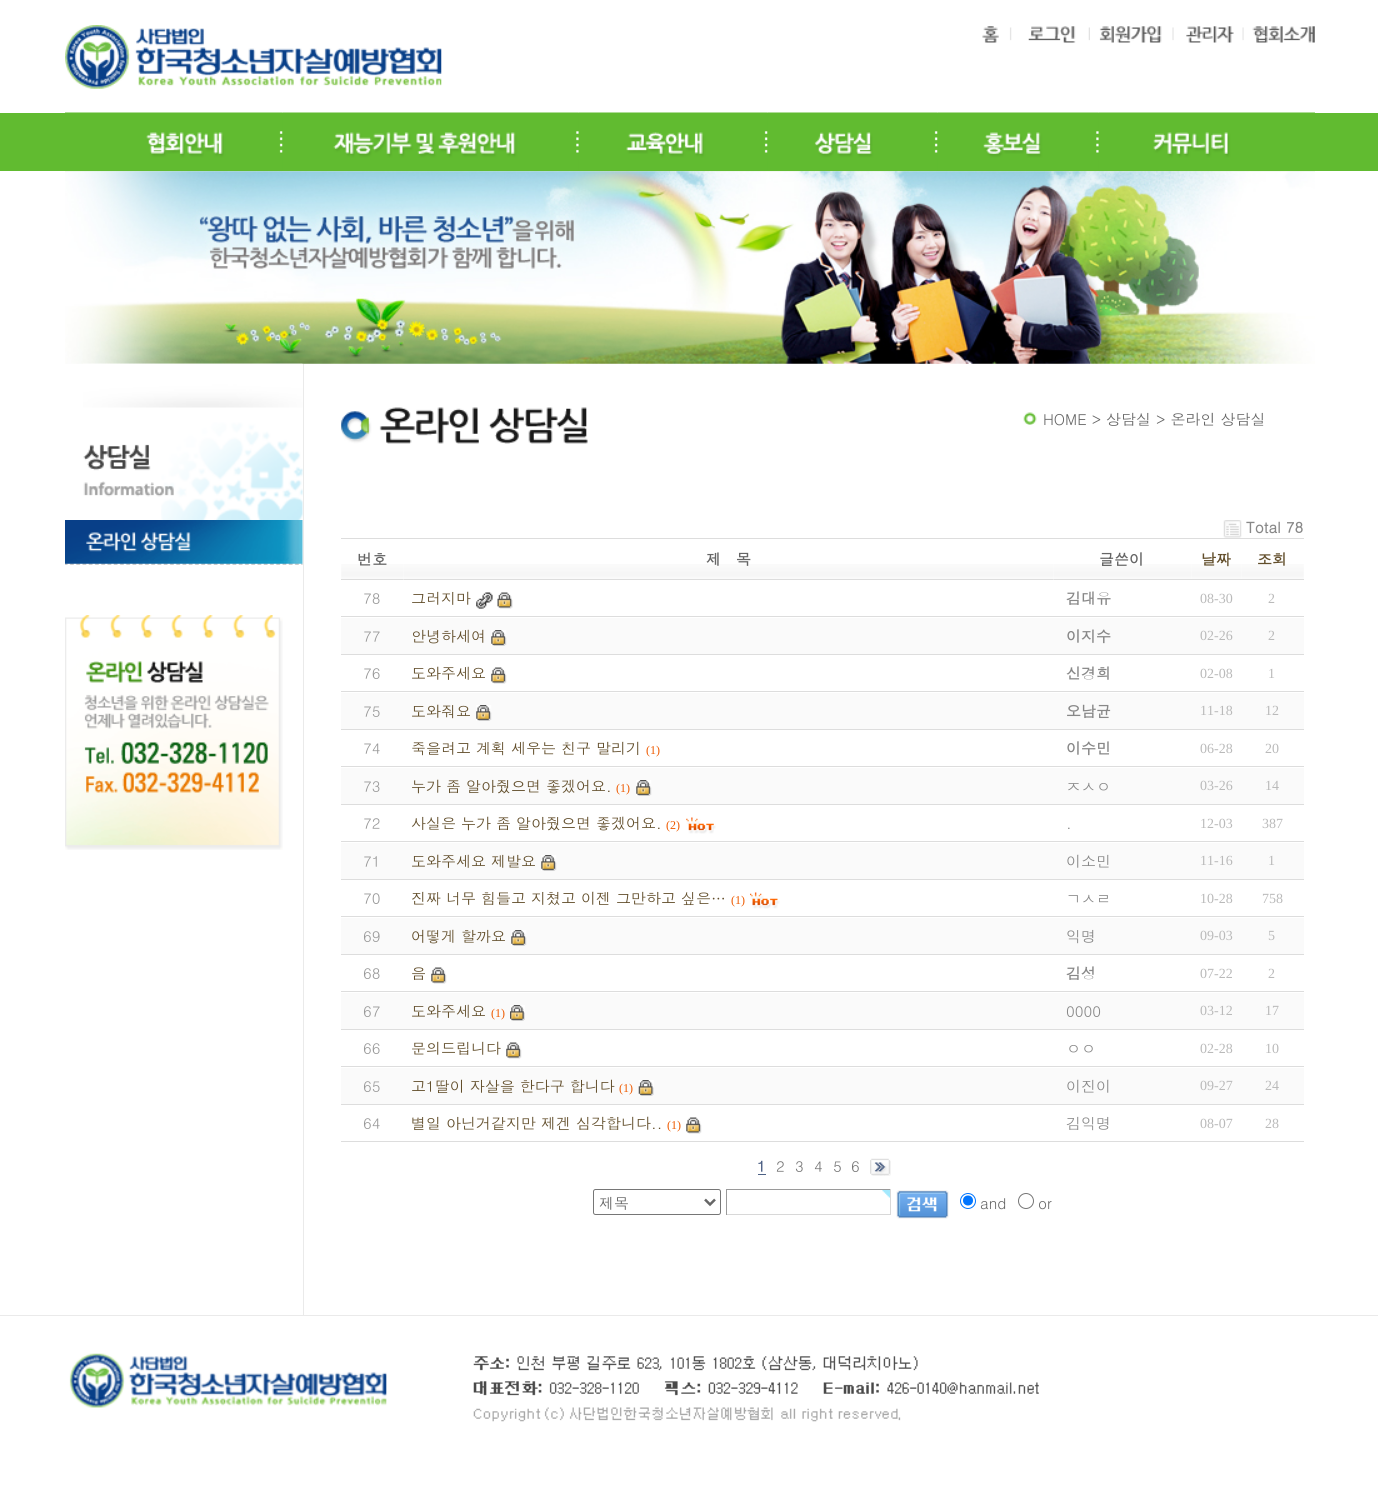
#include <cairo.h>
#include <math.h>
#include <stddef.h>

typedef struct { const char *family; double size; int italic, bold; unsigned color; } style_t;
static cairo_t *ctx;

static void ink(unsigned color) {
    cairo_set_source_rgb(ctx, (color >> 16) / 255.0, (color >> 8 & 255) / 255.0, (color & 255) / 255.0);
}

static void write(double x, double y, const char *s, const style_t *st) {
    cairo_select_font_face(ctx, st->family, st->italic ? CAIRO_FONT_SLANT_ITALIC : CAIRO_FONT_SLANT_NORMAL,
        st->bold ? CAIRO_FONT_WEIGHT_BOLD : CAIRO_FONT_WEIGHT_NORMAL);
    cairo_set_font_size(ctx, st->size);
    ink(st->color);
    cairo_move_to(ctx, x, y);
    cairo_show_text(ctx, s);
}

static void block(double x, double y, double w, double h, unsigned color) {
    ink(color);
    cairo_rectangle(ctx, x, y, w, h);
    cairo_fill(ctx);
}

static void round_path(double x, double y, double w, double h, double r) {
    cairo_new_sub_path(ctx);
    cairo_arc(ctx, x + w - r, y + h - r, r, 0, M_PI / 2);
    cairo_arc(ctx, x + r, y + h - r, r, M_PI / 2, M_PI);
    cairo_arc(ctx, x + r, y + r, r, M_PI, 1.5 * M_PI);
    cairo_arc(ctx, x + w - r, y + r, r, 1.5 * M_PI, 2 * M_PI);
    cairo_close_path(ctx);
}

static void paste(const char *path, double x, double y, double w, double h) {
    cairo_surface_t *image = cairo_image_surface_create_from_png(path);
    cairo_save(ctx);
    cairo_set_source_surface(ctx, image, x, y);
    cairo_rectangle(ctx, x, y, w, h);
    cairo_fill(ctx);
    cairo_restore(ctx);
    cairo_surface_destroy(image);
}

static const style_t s1 = {"Dotum", 15, 0, 0, 0x666666};
static const style_t s2 = {"Dotum", 15, 0, 1, 0x888888};
static const style_t s3 = {"Dotum", 15, 0, 1, 0x666666};
static const style_t s4 = {"Dotum", 15, 0, 1, 0x624e2b};
static const style_t s5 = {"Dotum", 15, 0, 0, 0x999999};
static const style_t s6 = {"Dotum", 15, 0, 0, 0x624e2b};
static const style_t s7 = {"Liberation Serif", 14, 0, 0, 0xbababa};
static const style_t s8 = {"Liberation Serif", 12, 0, 0, 0xee5a00};
static const style_t s9 = {"Dotum", 15, 0, 0, 0x888888};
static const style_t s10 = {"Dotum", 15, 0, 1, 0x4d6185};
static const style_t s11 = {"Dotum", 15, 0, 0, 0x777777};

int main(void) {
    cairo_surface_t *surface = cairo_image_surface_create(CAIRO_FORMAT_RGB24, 1378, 1492);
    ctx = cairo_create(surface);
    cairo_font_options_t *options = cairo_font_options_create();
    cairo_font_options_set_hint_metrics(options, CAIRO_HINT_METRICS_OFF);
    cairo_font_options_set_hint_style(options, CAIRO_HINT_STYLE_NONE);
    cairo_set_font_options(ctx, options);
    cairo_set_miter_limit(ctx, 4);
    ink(0xffffff);
    cairo_paint(ctx);
    paste("pic1.png", 65, 25, 377, 64);
    paste("pic2.png", 982, 26, 30, 17);
    paste("pic3.png", 1028, 26, 62, 17);
    paste("pic4.png", 1099, 26, 75, 17);
    paste("pic5.png", 1173, 26, 71, 17);
    paste("pic6.png", 1243, 26, 72, 17);
    block(0, 113, 1378, 58, 0x61bb30);
    paste("pic7.png", 65, 112, 218, 60);
    paste("pic8.png", 282, 112, 297, 60);
    paste("pic9.png", 578, 112, 190, 60);
    paste("pic10.png", 767, 112, 171, 60);
    paste("pic11.png", 937, 112, 162, 60);
    paste("pic12.png", 1098, 112, 217, 60);
    paste("pic13.png", 65, 171, 1250, 193);
    block(303, 364, 1, 951, 0xeaeaea);
    paste("pic14.png", 83, 363, 220, 157);
    paste("pic15.png", 65, 520, 238, 45);
    paste("pic16.png", 65, 615, 218, 235);
    paste("pic17.png", 341, 407, 247, 37);
    paste("pic18.png", 1023, 412, 14, 13);
    write(1043, 425, "HOME > 상담실 > 온라인 상담실", &s1);
    paste("pic19.png", 1223, 520, 19, 18);
    write(1246, 533, "Total 78", &s2);
    paste("pic20.png", 341, 564, 63, 15);
    block(341, 538, 963, 1, 0xdddddd);
    block(341, 579, 63, 1, 0xdddddd);
    write(357, 565, "번호", &s3);
    paste("pic21.png", 403, 564, 651, 16);
    block(404, 579, 650, 1, 0xdddddd);
    write(706, 565, "제   목", &s3);
    paste("pic22.png", 1053, 564, 138, 16);
    block(1054, 579, 250, 1, 0xdddddd);
    write(1099, 565, "글쓴이", &s3);
    paste("pic23.png", 1191, 564, 50, 15);
    write(1201, 565, "날짜", &s4);
    paste("pic20.png", 1241, 564, 63, 15);
    write(1257, 565, "조회", &s4);
    block(341, 616, 63, 1, 0xdddddd);
    write(363, 604, "78", &s5);
    write(411, 604, "그러지마", &s6);
    paste("pic24.png", 476, 592, 17, 17);
    paste("pic25.png", 497, 592, 16, 17);
    block(404, 616, 900, 1, 0xdddddd);
    write(1066, 604, "김대유", &s2);
    write(1200, 603, "08-30", &s7);
    write(1268, 603, "2", &s7);
    block(341, 618, 963, 36, 0xfafafa);
    block(341, 654, 63, 1, 0xdddddd);
    write(363, 642, "77", &s5);
    write(411, 642, "안녕하세여", &s6);
    paste("pic26.png", 491, 630, 16, 16);
    block(404, 654, 900, 1, 0xdddddd);
    write(1066, 642, "이지수", &s2);
    write(1200, 640, "02-26", &s7);
    write(1268, 640, "2", &s7);
    block(341, 691, 63, 1, 0xdddddd);
    write(363, 679, "76", &s5);
    write(411, 679, "도와주세요", &s6);
    paste("pic27.png", 491, 667, 16, 17);
    block(404, 691, 900, 1, 0xdddddd);
    write(1066, 679, "신경희", &s2);
    write(1200, 678, "02-08", &s7);
    write(1268, 678, "1", &s7);
    block(341, 693, 963, 36, 0xfafafa);
    block(341, 729, 63, 1, 0xdddddd);
    write(363, 717, "75", &s5);
    write(411, 717, "도와줘요", &s6);
    paste("pic26.png", 476, 705, 16, 16);
    block(404, 729, 900, 1, 0xdddddd);
    write(1066, 717, "오남균", &s2);
    write(1200, 715, "11-18", &s7);
    write(1265, 715, "12", &s7);
    block(341, 766, 63, 1, 0xdddddd);
    write(363, 754, "74", &s5);
    write(411, 754, "죽을려고 계획 세우는 친구 말리기", &s6);
    write(646, 754, "(1)", &s8);
    block(404, 766, 900, 1, 0xdddddd);
    write(1066, 754, "이수민", &s2);
    write(1200, 753, "06-28", &s7);
    write(1265, 753, "20", &s7);
    block(341, 768, 963, 36, 0xfafafa);
    block(341, 804, 63, 1, 0xdddddd);
    write(363, 792, "73", &s5);
    write(411, 792, "누가 좀 알아줬으면 좋겠어요.", &s6);
    write(616, 792, "(1)", &s8);
    paste("pic28.png", 636, 780, 16, 16);
    block(404, 804, 900, 1, 0xdddddd);
    write(1066, 792, "ㅈㅅㅇ", &s9);
    write(1200, 790, "03-26", &s7);
    write(1265, 790, "14", &s7);
    block(341, 841, 63, 1, 0xdddddd);
    write(363, 829, "72", &s5);
    write(411, 829, "사실은 누가 좀 알아줬으면 좋겠어요.", &s6);
    write(666, 829, "(2)", &s8);
    paste("pic29.png", 686, 817, 30, 17);
    block(404, 841, 900, 1, 0xdddddd);
    write(1066, 829, ".", &s9);
    write(1200, 828, "12-03", &s7);
    write(1262, 828, "387", &s7);
    block(341, 843, 963, 36, 0xfafafa);
    block(341, 879, 63, 1, 0xdddddd);
    write(363, 867, "71", &s5);
    write(411, 867, "도와주세요 제발요", &s6);
    paste("pic26.png", 541, 855, 16, 16);
    block(404, 879, 900, 1, 0xdddddd);
    write(1066, 867, "이소민", &s9);
    write(1200, 865, "11-16", &s7);
    write(1268, 865, "1", &s7);
    block(341, 916, 63, 1, 0xdddddd);
    write(363, 904, "70", &s5);
    write(411, 904, "진짜 너무 힘들고 지쳤고 이젠 그만하고 싶은…", &s6);
    write(731, 904, "(1)", &s8);
    paste("pic30.png", 750, 892, 30, 17);
    block(404, 916, 900, 1, 0xdddddd);
    write(1066, 904, "ㄱㅅㄹ", &s9);
    write(1200, 903, "10-28", &s7);
    write(1262, 903, "758", &s7);
    block(341, 918, 963, 36, 0xfafafa);
    block(341, 954, 63, 1, 0xdddddd);
    write(363, 942, "69", &s5);
    write(411, 942, "어떻게 할까요", &s6);
    paste("pic26.png", 511, 930, 16, 16);
    block(404, 954, 900, 1, 0xdddddd);
    write(1066, 942, "익명", &s9);
    write(1200, 940, "09-03", &s7);
    write(1268, 940, "5", &s7);
    block(341, 991, 63, 1, 0xdddddd);
    write(363, 979, "68", &s5);
    write(411, 979, "음", &s6);
    paste("pic27.png", 431, 967, 16, 17);
    block(404, 991, 900, 1, 0xdddddd);
    write(1066, 979, "김성", &s2);
    write(1200, 978, "07-22", &s7);
    write(1268, 978, "2", &s7);
    block(341, 993, 963, 36, 0xfafafa);
    block(341, 1029, 63, 1, 0xdddddd);
    write(363, 1017, "67", &s5);
    write(411, 1017, "도와주세요", &s6);
    write(491, 1017, "(1)", &s8);
    paste("pic31.png", 510, 1005, 15, 16);
    block(404, 1029, 900, 1, 0xdddddd);
    write(1066, 1017, "0000", &s9);
    write(1200, 1015, "03-12", &s7);
    write(1265, 1015, "17", &s7);
    block(341, 1066, 63, 1, 0xdddddd);
    write(363, 1054, "66", &s5);
    write(411, 1054, "문의드립니다", &s6);
    paste("pic27.png", 506, 1042, 16, 17);
    block(404, 1066, 900, 1, 0xdddddd);
    write(1066, 1054, "ㅇㅇ", &s9);
    write(1200, 1053, "02-28", &s7);
    write(1265, 1053, "10", &s7);
    block(341, 1068, 963, 36, 0xfafafa);
    block(341, 1104, 63, 1, 0xdddddd);
    write(363, 1092, "65", &s5);
    write(411, 1092, "고1딸이 자살을 한다구 합니다", &s6);
    write(619, 1092, "(1)", &s8);
    paste("pic32.png", 638, 1080, 16, 16);
    block(404, 1104, 900, 1, 0xdddddd);
    write(1066, 1092, "이진이", &s9);
    write(1200, 1090, "09-27", &s7);
    write(1265, 1090, "24", &s7);
    block(341, 1141, 63, 1, 0xdddddd);
    write(363, 1129, "64", &s5);
    write(411, 1129, "별일 아닌거같지만 제겐 심각합니다..", &s6);
    write(667, 1129, "(1)", &s8);
    paste("pic27.png", 686, 1117, 16, 17);
    block(404, 1141, 900, 1, 0xdddddd);
    write(1066, 1129, "김익명", &s9);
    write(1200, 1128, "08-07", &s7);
    write(1265, 1128, "28", &s7);
    write(757, 1172, "1", &s10);
    block(758, 1174, 8, 1, 0x4d6185);
    write(776, 1172, "2", &s11);
    write(795, 1172, "3", &s11);
    write(814, 1172, "4", &s11);
    write(833, 1172, "5", &s11);
    write(851, 1172, "6", &s11);
    paste("pic33.png", 870, 1158, 21, 18);
    round_path(593.5, 1189.5, 127, 25, 2);
    ink(0x767676);
    cairo_set_line_width(ctx, 1);
    cairo_stroke(ctx);
    cairo_new_path(ctx);
    cairo_move_to(ctx, 705, 1199.5);
    cairo_line_to(ctx, 710, 1204.5);
    cairo_line_to(ctx, 715, 1199.5);
    ink(0x666666);
    cairo_set_line_width(ctx, 2.5);
    cairo_stroke(ctx);
    write(599, 1209, "제목", &s1);
    paste("pic34.png", 882, 1190, 8, 8);
    block(726, 1189, 165, 1, 0x9a9a9a);
    block(890, 1189, 1, 26, 0xd8d8d8);
    block(726, 1214, 165, 1, 0xd8d8d8);
    block(726, 1189, 1, 26, 0x9a9a9a);
    paste("pic35.png", 896, 1190, 53, 29);
    cairo_arc(ctx, 968, 1201, 7.5, 0, 2 * M_PI);
    ink(0x0075ff);
    cairo_set_line_width(ctx, 1);
    cairo_stroke(ctx);
    cairo_arc(ctx, 968, 1200.5, 5, 0, 2 * M_PI);
    cairo_fill(ctx);
    write(980, 1209, "and", &s1);
    cairo_new_path(ctx);
    cairo_arc(ctx, 1026, 1201, 7.5, 0, 2 * M_PI);
    ink(0x767676);
    cairo_stroke(ctx);
    write(1038, 1209, "or", &s1);
    block(0, 1315, 1378, 1, 0xeaeaea);
    paste("pic36.png", 69, 1353, 970, 69);
    cairo_surface_write_to_png(surface, "screenshot.png");
    cairo_font_options_destroy(options);
    cairo_destroy(ctx);
    cairo_surface_destroy(surface);
    return 0;
}
